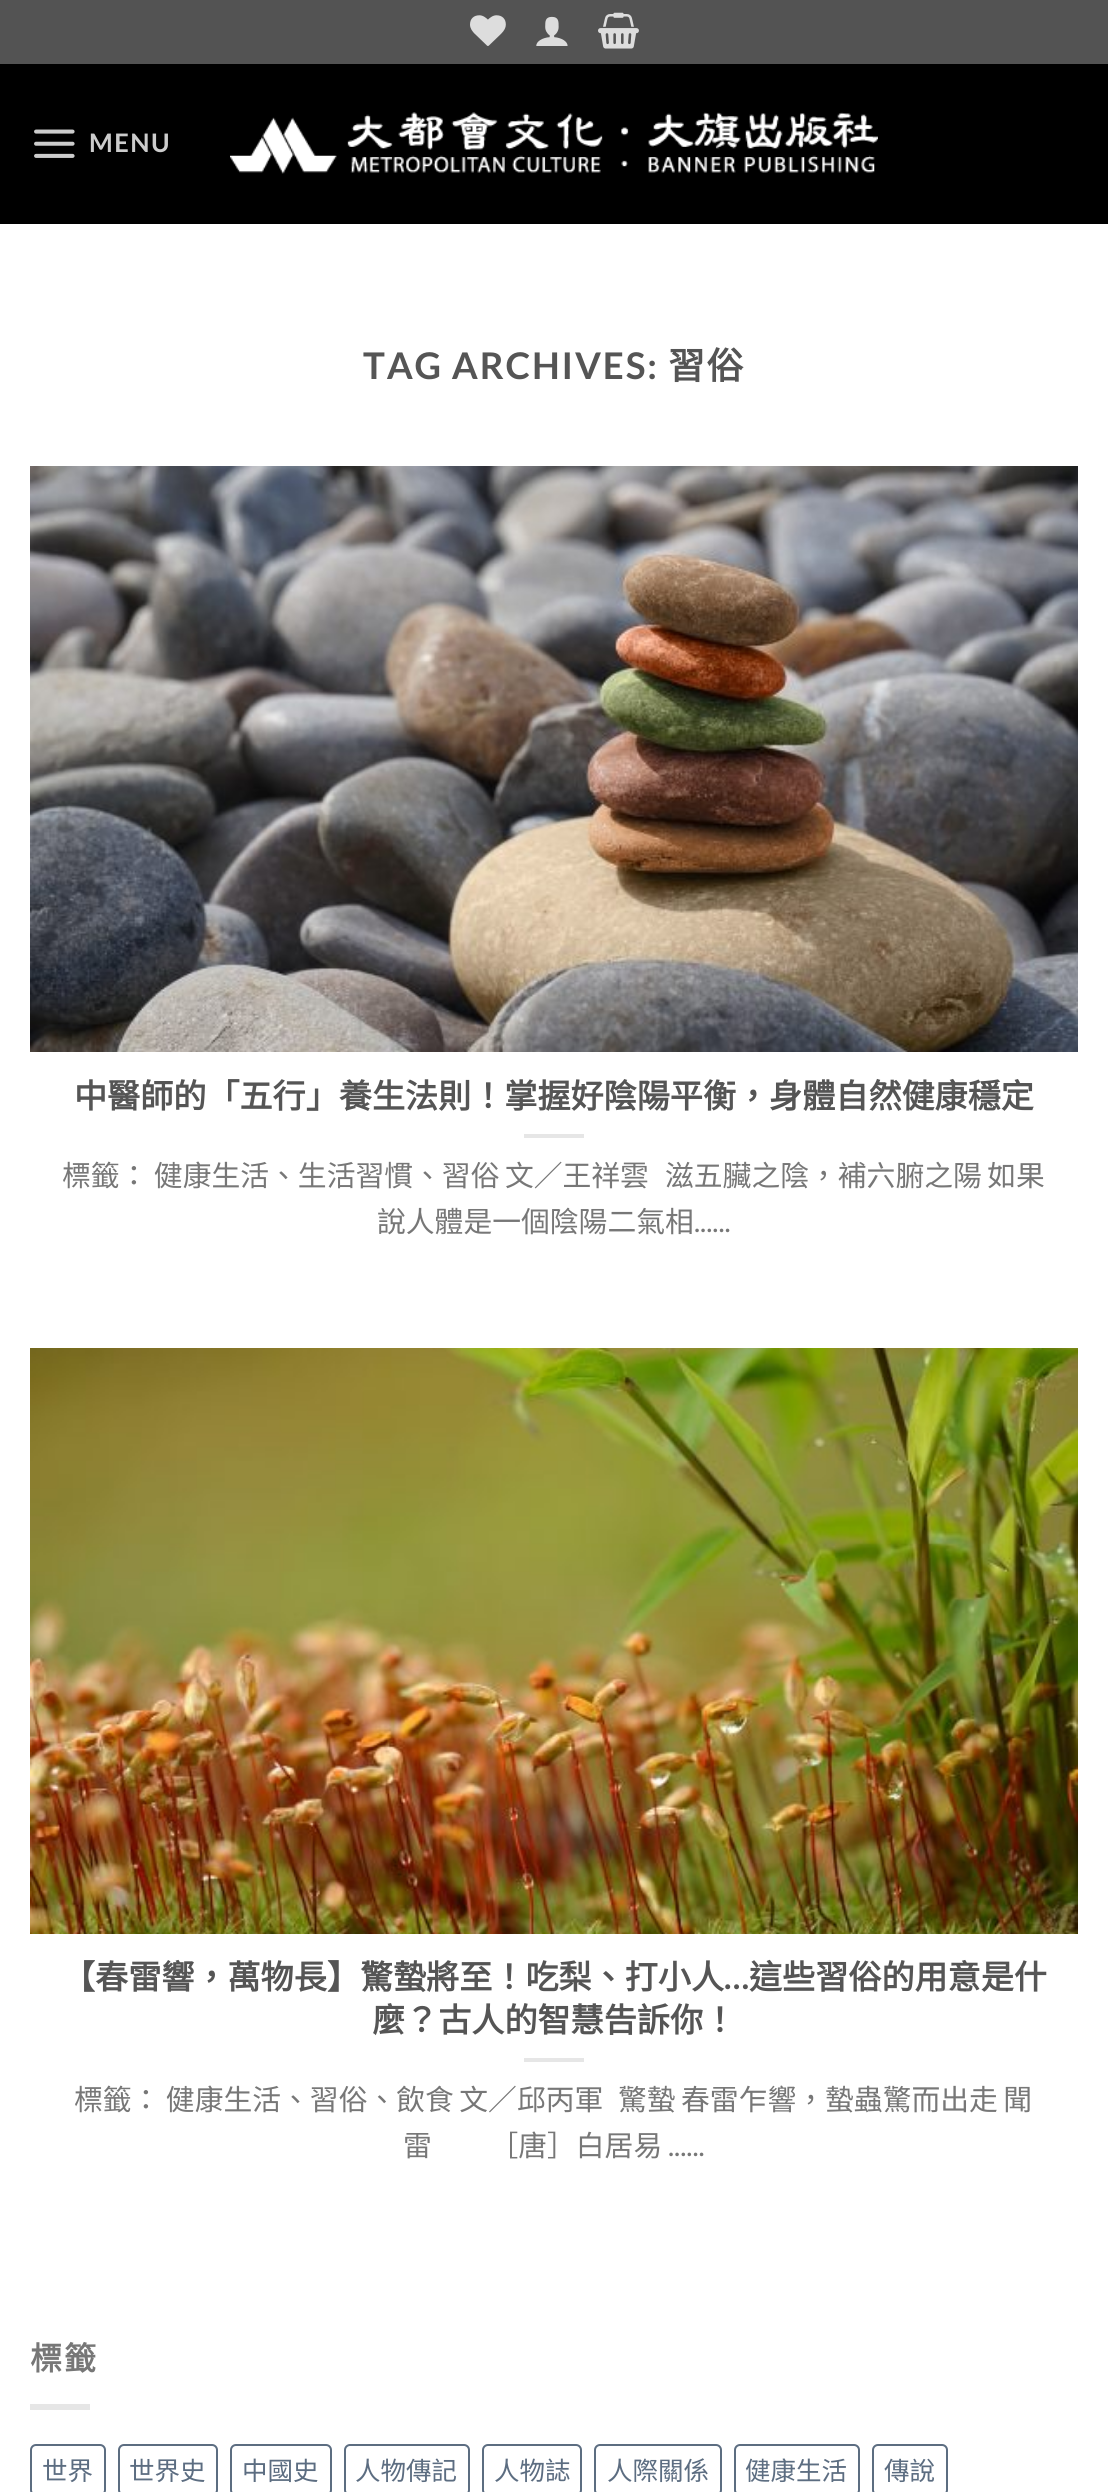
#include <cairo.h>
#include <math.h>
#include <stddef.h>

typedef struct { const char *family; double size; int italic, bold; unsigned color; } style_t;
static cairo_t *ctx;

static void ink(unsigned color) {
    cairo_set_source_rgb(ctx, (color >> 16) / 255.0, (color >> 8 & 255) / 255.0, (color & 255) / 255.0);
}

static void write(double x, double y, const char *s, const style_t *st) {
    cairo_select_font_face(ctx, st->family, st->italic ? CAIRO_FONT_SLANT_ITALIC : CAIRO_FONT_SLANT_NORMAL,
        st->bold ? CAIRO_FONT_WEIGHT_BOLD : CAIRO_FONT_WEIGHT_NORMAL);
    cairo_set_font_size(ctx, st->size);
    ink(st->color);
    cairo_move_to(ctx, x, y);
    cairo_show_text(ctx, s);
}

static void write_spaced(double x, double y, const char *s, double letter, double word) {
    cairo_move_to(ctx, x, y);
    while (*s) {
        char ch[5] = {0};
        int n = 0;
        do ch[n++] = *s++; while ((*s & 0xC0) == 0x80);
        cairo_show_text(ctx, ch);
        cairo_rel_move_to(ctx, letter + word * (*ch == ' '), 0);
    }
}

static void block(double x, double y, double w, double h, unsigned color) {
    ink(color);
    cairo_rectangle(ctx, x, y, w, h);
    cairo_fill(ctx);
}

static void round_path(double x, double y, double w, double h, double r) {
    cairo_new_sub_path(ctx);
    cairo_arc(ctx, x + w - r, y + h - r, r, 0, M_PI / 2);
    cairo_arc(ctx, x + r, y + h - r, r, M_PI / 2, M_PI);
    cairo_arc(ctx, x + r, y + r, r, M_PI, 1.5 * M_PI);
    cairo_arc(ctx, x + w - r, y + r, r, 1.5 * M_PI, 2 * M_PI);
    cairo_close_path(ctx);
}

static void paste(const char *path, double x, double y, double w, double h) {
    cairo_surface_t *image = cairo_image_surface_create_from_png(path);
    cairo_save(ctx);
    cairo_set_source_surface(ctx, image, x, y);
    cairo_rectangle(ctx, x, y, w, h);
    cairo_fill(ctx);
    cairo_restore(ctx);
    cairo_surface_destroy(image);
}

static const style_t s1 = {"Noto Sans CJK TC", 33.1, 0, 1, 0x555555};
static const style_t s2 = {"Noto Sans CJK TC", 28.8, 0, 0, 0x777777};
static const style_t s3 = {"Lato", 28.8, 0, 0, 0x777777};
static const style_t s4 = {"Lato", 33.1, 0, 1, 0x555555};
static const style_t s5 = {"Noto Sans CJK TC", 25.5, 0, 0, 0x5c6d81};

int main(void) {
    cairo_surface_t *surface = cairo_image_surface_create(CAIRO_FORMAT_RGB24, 1108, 2492);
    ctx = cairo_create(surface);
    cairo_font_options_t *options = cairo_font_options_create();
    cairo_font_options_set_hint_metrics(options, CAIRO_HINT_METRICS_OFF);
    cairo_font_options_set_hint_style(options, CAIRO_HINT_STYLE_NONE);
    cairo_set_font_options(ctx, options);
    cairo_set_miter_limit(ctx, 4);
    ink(0xffffff);
    cairo_paint(ctx);
    block(0, 64, 1108, 160, 0x000000);
    block(0, 0, 1108, 64, 0x535353);
    paste("pic1.png", 470, 15, 36, 31);
    paste("pic2.png", 536, 16, 32, 30);
    paste("pic3.png", 598, 12, 41, 37);
    paste("pic4.png", 34, 129, 41, 29);
    cairo_select_font_face(ctx, "Lato", CAIRO_FONT_SLANT_NORMAL, CAIRO_FONT_WEIGHT_BOLD);
    cairo_set_font_size(ctx, 25.5);
    ink(0xcccccc);
    write_spaced(89, 152, "MENU", 1.5, 0);
    paste("pic5.png", 230, 112, 648, 62);
    cairo_set_font_size(ctx, 36.75);
    ink(0x555555);
    write_spaced(363, 379, "TAG ARCHIVES:", 1.8, 0);
    cairo_select_font_face(ctx, "Noto Sans CJK TC", CAIRO_FONT_SLANT_NORMAL, CAIRO_FONT_WEIGHT_BOLD);
    write_spaced(668, 379, "習俗", 1.8, 0);
    paste("pic6.png", 30, 466, 1048, 586);
    write(74, 1108, "中醫師的「五行」養生法則！掌握好陰陽平衡，身體自然健康穩定", &s1);
    block(524, 1134, 60, 4, 0xe6e6e6);
    cairo_select_font_face(ctx, "Noto Sans CJK TC", CAIRO_FONT_SLANT_NORMAL, CAIRO_FONT_WEIGHT_NORMAL);
    cairo_set_font_size(ctx, 28.8);
    ink(0x777777);
    write_spaced(62, 1186, "標籤： 健康生活、生活習慣、習俗 文／王祥雲", 0, -1);
    write_spaced(665, 1186, "滋五臟之陰，補六腑之陽 如果", 0, -1);
    write(377, 1232, "說人體是一個陰陽二氣相", &s2);
    write(694, 1232, "......", &s3);
    paste("pic7.png", 30, 1348, 1048, 586);
    write(62, 1989, "【春雷響，萬物長】驚蟄將至！吃梨、打小人", &s1);
    write(724, 1989, "…", &s4);
    write(749, 1989, "這些習俗的用意是什", &s1);
    write(372, 2032, "麼？古人的智慧告訴你！", &s1);
    block(524, 2058, 60, 4, 0xe6e6e6);
    cairo_select_font_face(ctx, "Noto Sans CJK TC", CAIRO_FONT_SLANT_NORMAL, CAIRO_FONT_WEIGHT_NORMAL);
    cairo_set_font_size(ctx, 28.8);
    ink(0x777777);
    write_spaced(74, 2110, "標籤： 健康生活、習俗、飲食 文／邱丙軍", 0, -1);
    write_spaced(618, 2110, "驚蟄 春雷乍響，蟄蟲驚而出走 聞", 0, -1);
    write(403, 2156, "雷　　［唐］白居易", &s2);
    write(668, 2156, "......", &s3);
    cairo_select_font_face(ctx, "Noto Sans CJK TC", CAIRO_FONT_SLANT_NORMAL, CAIRO_FONT_WEIGHT_BOLD);
    cairo_set_font_size(ctx, 32);
    write_spaced(30, 2370, "標籤", 2, 0);
    block(30, 2404, 60, 6, 0xe6e6e6);
    round_path(31, 2445, 74, 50, 5);
    ink(0x5c6d81);
    cairo_stroke(ctx);
    write(42, 2480, "世界", &s5);
    round_path(119, 2445, 98, 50, 5);
    cairo_stroke(ctx);
    write(129, 2480, "世界史", &s5);
    round_path(231, 2445, 100, 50, 5);
    cairo_stroke(ctx);
    write(242, 2480, "中國史", &s5);
    round_path(345, 2445, 124, 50, 5);
    cairo_stroke(ctx);
    write(355, 2480, "人物傳記", &s5);
    round_path(483, 2445, 98, 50, 5);
    cairo_stroke(ctx);
    write(494, 2480, "人物誌", &s5);
    round_path(595, 2445, 126, 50, 5);
    cairo_stroke(ctx);
    write(607, 2480, "人際關係", &s5);
    round_path(735, 2445, 124, 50, 5);
    cairo_stroke(ctx);
    write(745, 2480, "健康生活", &s5);
    round_path(873, 2445, 74, 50, 5);
    cairo_stroke(ctx);
    write(884, 2480, "傳說", &s5);
    cairo_surface_write_to_png(surface, "screenshot.png");
    cairo_font_options_destroy(options);
    cairo_destroy(ctx);
    cairo_surface_destroy(surface);
    return 0;
}
